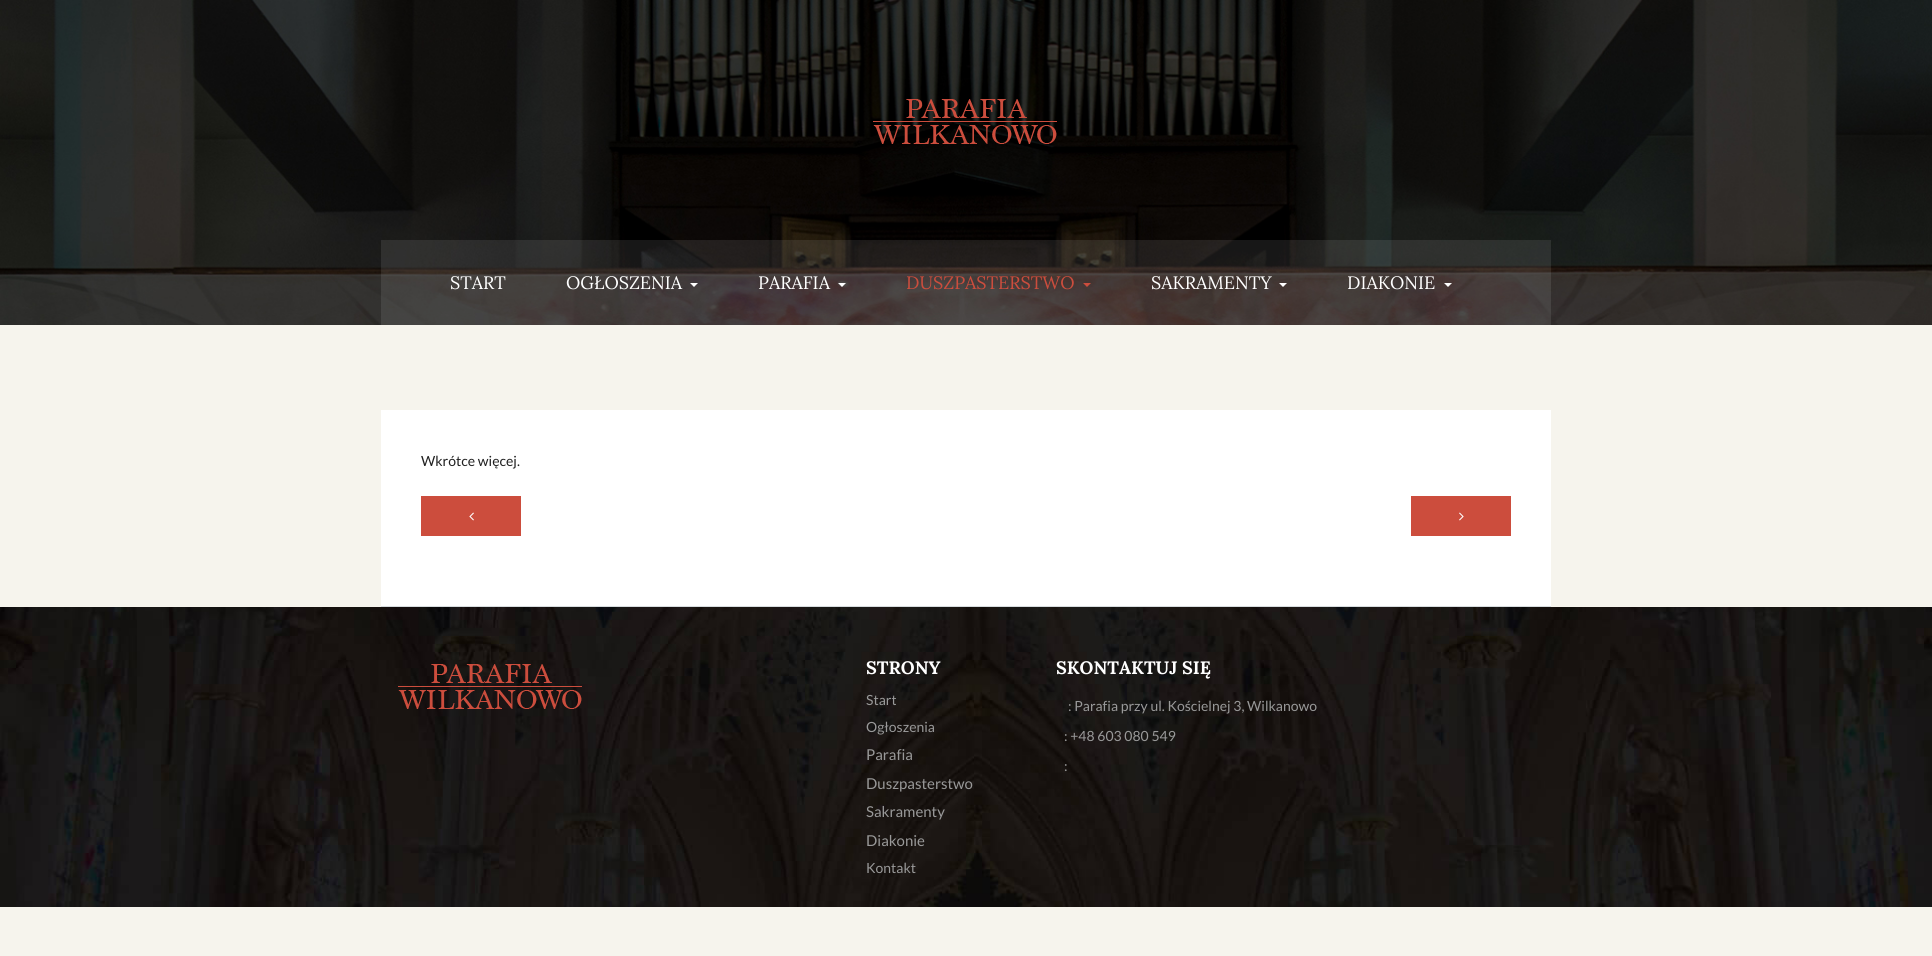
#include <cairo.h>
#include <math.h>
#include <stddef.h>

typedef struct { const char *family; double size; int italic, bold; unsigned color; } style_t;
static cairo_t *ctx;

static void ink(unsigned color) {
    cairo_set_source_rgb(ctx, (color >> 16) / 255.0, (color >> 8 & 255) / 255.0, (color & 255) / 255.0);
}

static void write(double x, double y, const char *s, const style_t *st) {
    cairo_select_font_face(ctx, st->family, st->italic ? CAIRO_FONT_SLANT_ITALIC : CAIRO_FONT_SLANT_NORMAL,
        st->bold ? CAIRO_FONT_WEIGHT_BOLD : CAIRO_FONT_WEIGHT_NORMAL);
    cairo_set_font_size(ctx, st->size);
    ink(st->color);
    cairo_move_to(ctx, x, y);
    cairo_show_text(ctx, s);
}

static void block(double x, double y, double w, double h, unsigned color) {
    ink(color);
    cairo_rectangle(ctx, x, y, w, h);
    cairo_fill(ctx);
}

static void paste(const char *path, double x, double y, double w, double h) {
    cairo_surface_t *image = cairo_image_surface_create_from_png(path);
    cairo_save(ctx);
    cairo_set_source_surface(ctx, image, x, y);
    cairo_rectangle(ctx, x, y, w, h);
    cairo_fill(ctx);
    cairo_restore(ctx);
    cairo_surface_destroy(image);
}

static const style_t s1 = {"Lora", 18, 0, 0, 0xffffff};
static const style_t s2 = {"Lora", 18, 0, 0, 0xcc4d3d};
static const style_t s3 = {"Lato", 14, 0, 0, 0x1f1f1f};
static const style_t s4 = {"Lora", 18, 0, 1, 0xffffff};
static const style_t s5 = {"Lato", 14, 0, 0, 0x999999};
static const style_t s6 = {"Lato", 15, 0, 0, 0x999999};

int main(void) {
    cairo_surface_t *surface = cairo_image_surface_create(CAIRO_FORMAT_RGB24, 1932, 956);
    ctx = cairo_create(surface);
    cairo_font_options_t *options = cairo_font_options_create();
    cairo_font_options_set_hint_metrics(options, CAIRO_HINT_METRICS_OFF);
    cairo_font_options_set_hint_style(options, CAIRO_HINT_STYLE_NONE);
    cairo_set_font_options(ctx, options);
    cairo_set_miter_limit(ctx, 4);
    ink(0xf6f4ed);
    cairo_paint(ctx);
    paste("pic1.png", 0, 0, 1932, 325);
    paste("pic2.png", 873, 99, 184, 45);
    cairo_set_source_rgba(ctx, 1, 1, 1, 0.09);
    cairo_rectangle(ctx, 381, 240, 1170, 85);
    cairo_fill(ctx);
    write(450, 289, "START", &s1);
    write(566, 289, "OGŁOSZENIA", &s1);
    cairo_new_path(ctx);
    cairo_move_to(ctx, 690, 283);
    cairo_line_to(ctx, 698, 283);
    cairo_line_to(ctx, 694, 287);
    cairo_close_path(ctx);
    cairo_fill(ctx);
    write(758, 289, "PARAFIA", &s1);
    cairo_new_path(ctx);
    cairo_move_to(ctx, 838, 283);
    cairo_line_to(ctx, 846, 283);
    cairo_line_to(ctx, 842, 287);
    cairo_close_path(ctx);
    cairo_fill(ctx);
    write(906, 289, "DUSZPASTERSTWO", &s2);
    cairo_new_path(ctx);
    cairo_move_to(ctx, 1083, 283);
    cairo_line_to(ctx, 1091, 283);
    cairo_line_to(ctx, 1087, 287);
    cairo_close_path(ctx);
    cairo_fill(ctx);
    write(1151, 289, "SAKRAMENTY", &s1);
    cairo_new_path(ctx);
    cairo_move_to(ctx, 1279, 283);
    cairo_line_to(ctx, 1287, 283);
    cairo_line_to(ctx, 1283, 287);
    cairo_close_path(ctx);
    cairo_fill(ctx);
    write(1347, 289, "DIAKONIE", &s1);
    cairo_new_path(ctx);
    cairo_move_to(ctx, 1444, 283);
    cairo_line_to(ctx, 1452, 283);
    cairo_line_to(ctx, 1448, 287);
    cairo_close_path(ctx);
    cairo_fill(ctx);
    block(381, 410, 1170, 196, 0xffffff);
    block(381, 606, 1170, 1, 0xd8dddf);
    write(421, 466, "Wkrótce więcej.", &s3);
    block(421, 496, 100, 40, 0xcc4d3d);
    paste("pic3.png", 469, 512, 5, 9);
    block(1411, 496, 100, 40, 0xcc4d3d);
    paste("pic4.png", 1459, 512, 5, 9);
    paste("pic5.png", 0, 607, 1932, 300);
    paste("pic6.png", 398, 664, 184, 45);
    write(866, 674, "STRONY", &s4);
    write(866, 705, "Start", &s5);
    write(866, 732, "Ogłoszenia", &s5);
    write(866, 760, "Parafia", &s6);
    write(866, 789, "Duszpasterstwo", &s6);
    write(866, 817, "Sakramenty", &s6);
    write(866, 846, "Diakonie", &s6);
    write(866, 873, "Kontakt", &s5);
    write(1056, 674, "SKONTAKTUJ SIĘ", &s4);
    write(1068, 711, ": Parafia przy ul. Kościelnej 3, Wilkanowo", &s5);
    write(1064, 741, ": +48 603 080 549", &s5);
    write(1064, 771, ":", &s5);
    cairo_surface_write_to_png(surface, "screenshot.png");
    cairo_font_options_destroy(options);
    cairo_destroy(ctx);
    cairo_surface_destroy(surface);
    return 0;
}
